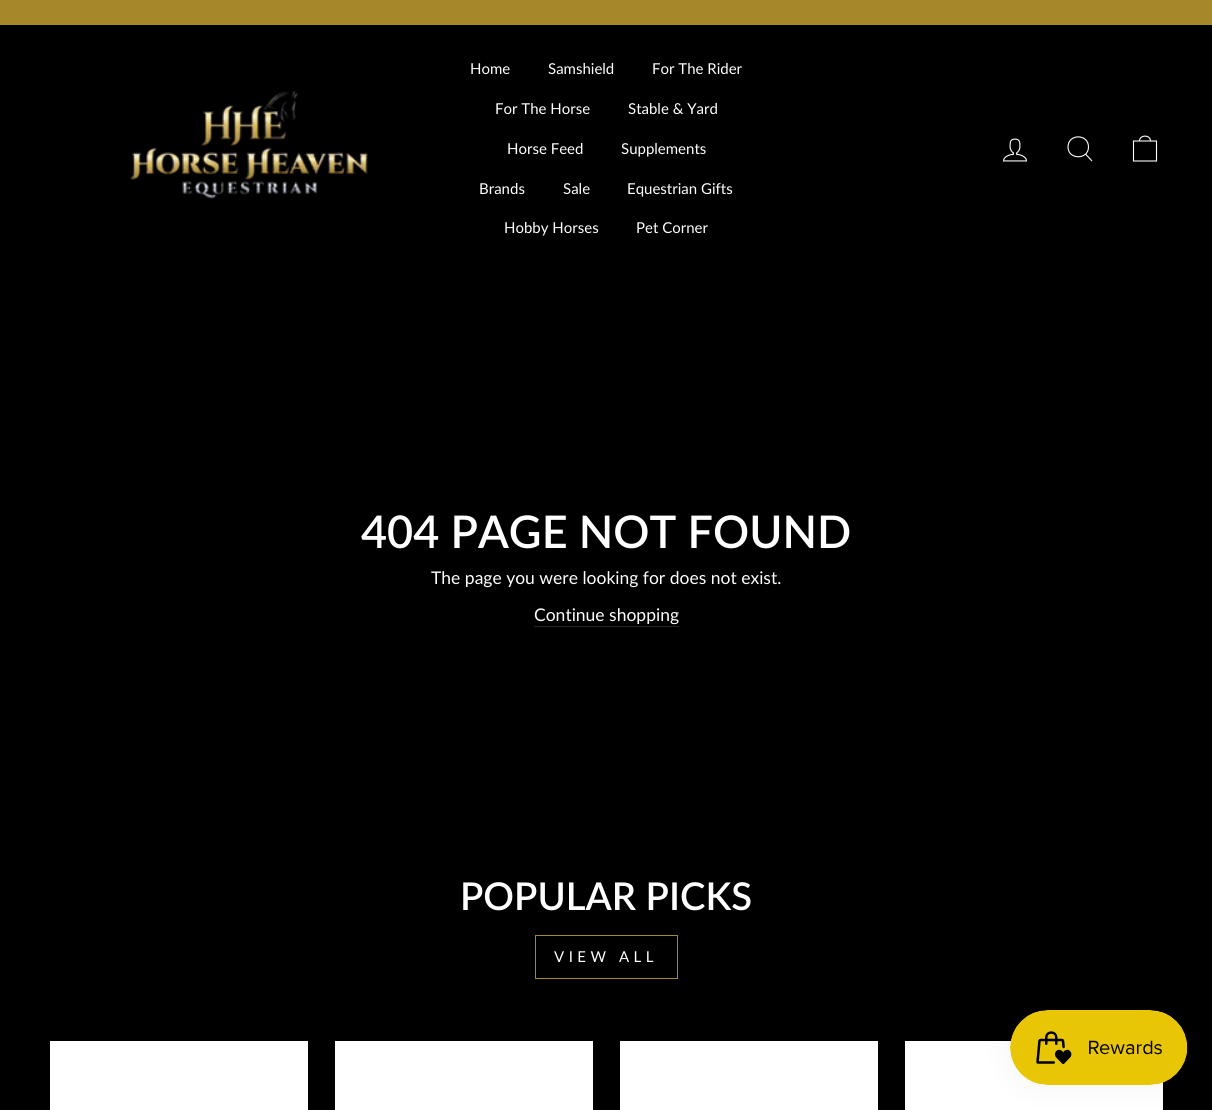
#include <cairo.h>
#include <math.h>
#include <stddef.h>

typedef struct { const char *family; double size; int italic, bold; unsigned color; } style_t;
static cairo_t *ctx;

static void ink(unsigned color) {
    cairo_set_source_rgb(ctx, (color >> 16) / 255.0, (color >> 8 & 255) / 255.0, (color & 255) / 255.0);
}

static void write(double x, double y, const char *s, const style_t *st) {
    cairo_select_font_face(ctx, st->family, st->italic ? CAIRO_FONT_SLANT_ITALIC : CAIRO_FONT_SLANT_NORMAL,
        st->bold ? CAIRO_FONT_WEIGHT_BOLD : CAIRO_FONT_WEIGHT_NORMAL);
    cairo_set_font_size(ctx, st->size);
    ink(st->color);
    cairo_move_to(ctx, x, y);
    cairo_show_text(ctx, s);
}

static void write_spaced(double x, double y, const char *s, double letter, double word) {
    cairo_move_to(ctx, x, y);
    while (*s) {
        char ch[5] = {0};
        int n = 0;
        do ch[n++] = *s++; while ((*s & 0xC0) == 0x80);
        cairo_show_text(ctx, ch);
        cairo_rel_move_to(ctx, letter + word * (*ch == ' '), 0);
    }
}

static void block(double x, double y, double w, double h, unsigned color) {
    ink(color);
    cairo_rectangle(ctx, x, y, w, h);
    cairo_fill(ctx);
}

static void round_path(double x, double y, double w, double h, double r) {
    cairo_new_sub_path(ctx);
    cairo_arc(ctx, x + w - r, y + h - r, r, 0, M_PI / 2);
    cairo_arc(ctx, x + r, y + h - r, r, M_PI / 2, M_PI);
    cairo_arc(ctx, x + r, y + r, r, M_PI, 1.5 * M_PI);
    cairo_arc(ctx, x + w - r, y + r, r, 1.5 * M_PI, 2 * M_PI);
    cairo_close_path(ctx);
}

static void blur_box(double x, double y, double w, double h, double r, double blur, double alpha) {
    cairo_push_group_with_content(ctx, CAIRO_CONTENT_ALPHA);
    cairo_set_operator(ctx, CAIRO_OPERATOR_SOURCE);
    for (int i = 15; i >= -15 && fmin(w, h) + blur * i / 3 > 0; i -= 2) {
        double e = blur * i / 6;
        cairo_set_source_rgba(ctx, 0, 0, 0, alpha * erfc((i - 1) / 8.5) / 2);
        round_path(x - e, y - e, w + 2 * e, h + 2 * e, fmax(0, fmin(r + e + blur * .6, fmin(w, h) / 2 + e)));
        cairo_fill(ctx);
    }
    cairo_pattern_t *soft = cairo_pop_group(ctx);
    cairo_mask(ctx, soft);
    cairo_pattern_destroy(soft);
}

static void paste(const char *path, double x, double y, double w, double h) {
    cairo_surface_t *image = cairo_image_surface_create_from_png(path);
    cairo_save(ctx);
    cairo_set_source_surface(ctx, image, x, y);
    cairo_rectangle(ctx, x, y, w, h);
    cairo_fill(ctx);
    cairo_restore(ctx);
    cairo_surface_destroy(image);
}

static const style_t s1 = {"Lato", 15, 0, 0, 0xffffff};
static const style_t s2 = {"Lato SemiBold", 45, 0, 0, 0xffffff};
static const style_t s3 = {"Lato", 17.5, 0, 0, 0xffffff};
static const style_t s4 = {"Lato SemiBold", 38.25, 0, 0, 0xffffff};

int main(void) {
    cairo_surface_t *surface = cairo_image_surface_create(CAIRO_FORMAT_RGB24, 1212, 1110);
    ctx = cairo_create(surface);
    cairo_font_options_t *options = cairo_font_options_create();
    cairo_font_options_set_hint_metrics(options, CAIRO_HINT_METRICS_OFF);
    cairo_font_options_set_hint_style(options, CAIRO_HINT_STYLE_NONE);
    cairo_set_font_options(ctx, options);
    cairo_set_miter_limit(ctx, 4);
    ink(0x000000);
    cairo_paint(ctx);
    block(0, 0, 1212, 25, 0xa5882a);
    paste("pic1.png", 130, 90, 238, 109);
    write(470, 74, "Home", &s1);
    write(548, 74, "Samshield", &s1);
    write(652, 74, "For The Rider", &s1);
    write(495, 114, "For The Horse", &s1);
    write(628, 114, "Stable & Yard", &s1);
    write(507, 154, "Horse Feed", &s1);
    write(621, 154, "Supplements", &s1);
    write(479, 194, "Brands", &s1);
    write(563, 194, "Sale", &s1);
    write(627, 194, "Equestrian Gifts", &s1);
    write(504, 233, "Hobby Horses", &s1);
    write(636, 233, "Pet Corner", &s1);
    paste("pic2.png", 1003, 138, 24, 24);
    cairo_new_path(ctx);
    cairo_move_to(ctx, 1088.5, 147);
    cairo_curve_to(ctx, 1088.5, 160, 1068, 160, 1068, 147);
    cairo_curve_to(ctx, 1068, 133.5, 1088.5, 133.5, 1088.5, 147);
    cairo_close_path(ctx);
    cairo_move_to(ctx, 1092, 161);
    cairo_line_to(ctx, 1085.5, 154);
    cairo_set_line_width(ctx, 1.1);
    cairo_stroke(ctx);
    cairo_new_path(ctx);
    cairo_move_to(ctx, 1133.5, 141);
    cairo_line_to(ctx, 1156.5, 141);
    cairo_line_to(ctx, 1156.5, 161);
    cairo_line_to(ctx, 1133.5, 161);
    cairo_close_path(ctx);
    cairo_move_to(ctx, 1139.5, 141);
    cairo_curve_to(ctx, 1139.5, 134.5, 1150.5, 134.5, 1150.5, 141);
    cairo_stroke(ctx);
    write(361, 548, "404 PAGE NOT FOUND", &s2);
    write(431, 584, "The page you were looking for does not exist.", &s3);
    block(534, 626, 145, 1, 0x262626);
    write(534, 621, "Continue shopping", &s3);
    write(460, 910, "POPULAR PICKS", &s4);
    cairo_rectangle(ctx, 535.5, 935.5, 142, 43);
    ink(0xa5882a);
    cairo_set_line_width(ctx, 1);
    cairo_stroke(ctx);
    cairo_select_font_face(ctx, "Lato", CAIRO_FONT_SLANT_NORMAL, CAIRO_FONT_WEIGHT_NORMAL);
    cairo_set_font_size(ctx, 15);
    ink(0xffffff);
    write_spaced(554, 962, "VIEW ALL", 4.5, 0);
    block(50, 1041, 258, 69, 0xffffff);
    block(335, 1041, 258, 69, 0xffffff);
    block(620, 1041, 258, 69, 0xffffff);
    block(905, 1041, 258, 69, 0xffffff);
    ink(0x000000);
    blur_box(1010, 1010, 178, 75, 37.5, 15.5, 0.05);
    paste("pic3.png", 1010, 1010, 178, 75);
    cairo_surface_write_to_png(surface, "screenshot.png");
    cairo_font_options_destroy(options);
    cairo_destroy(ctx);
    cairo_surface_destroy(surface);
    return 0;
}
